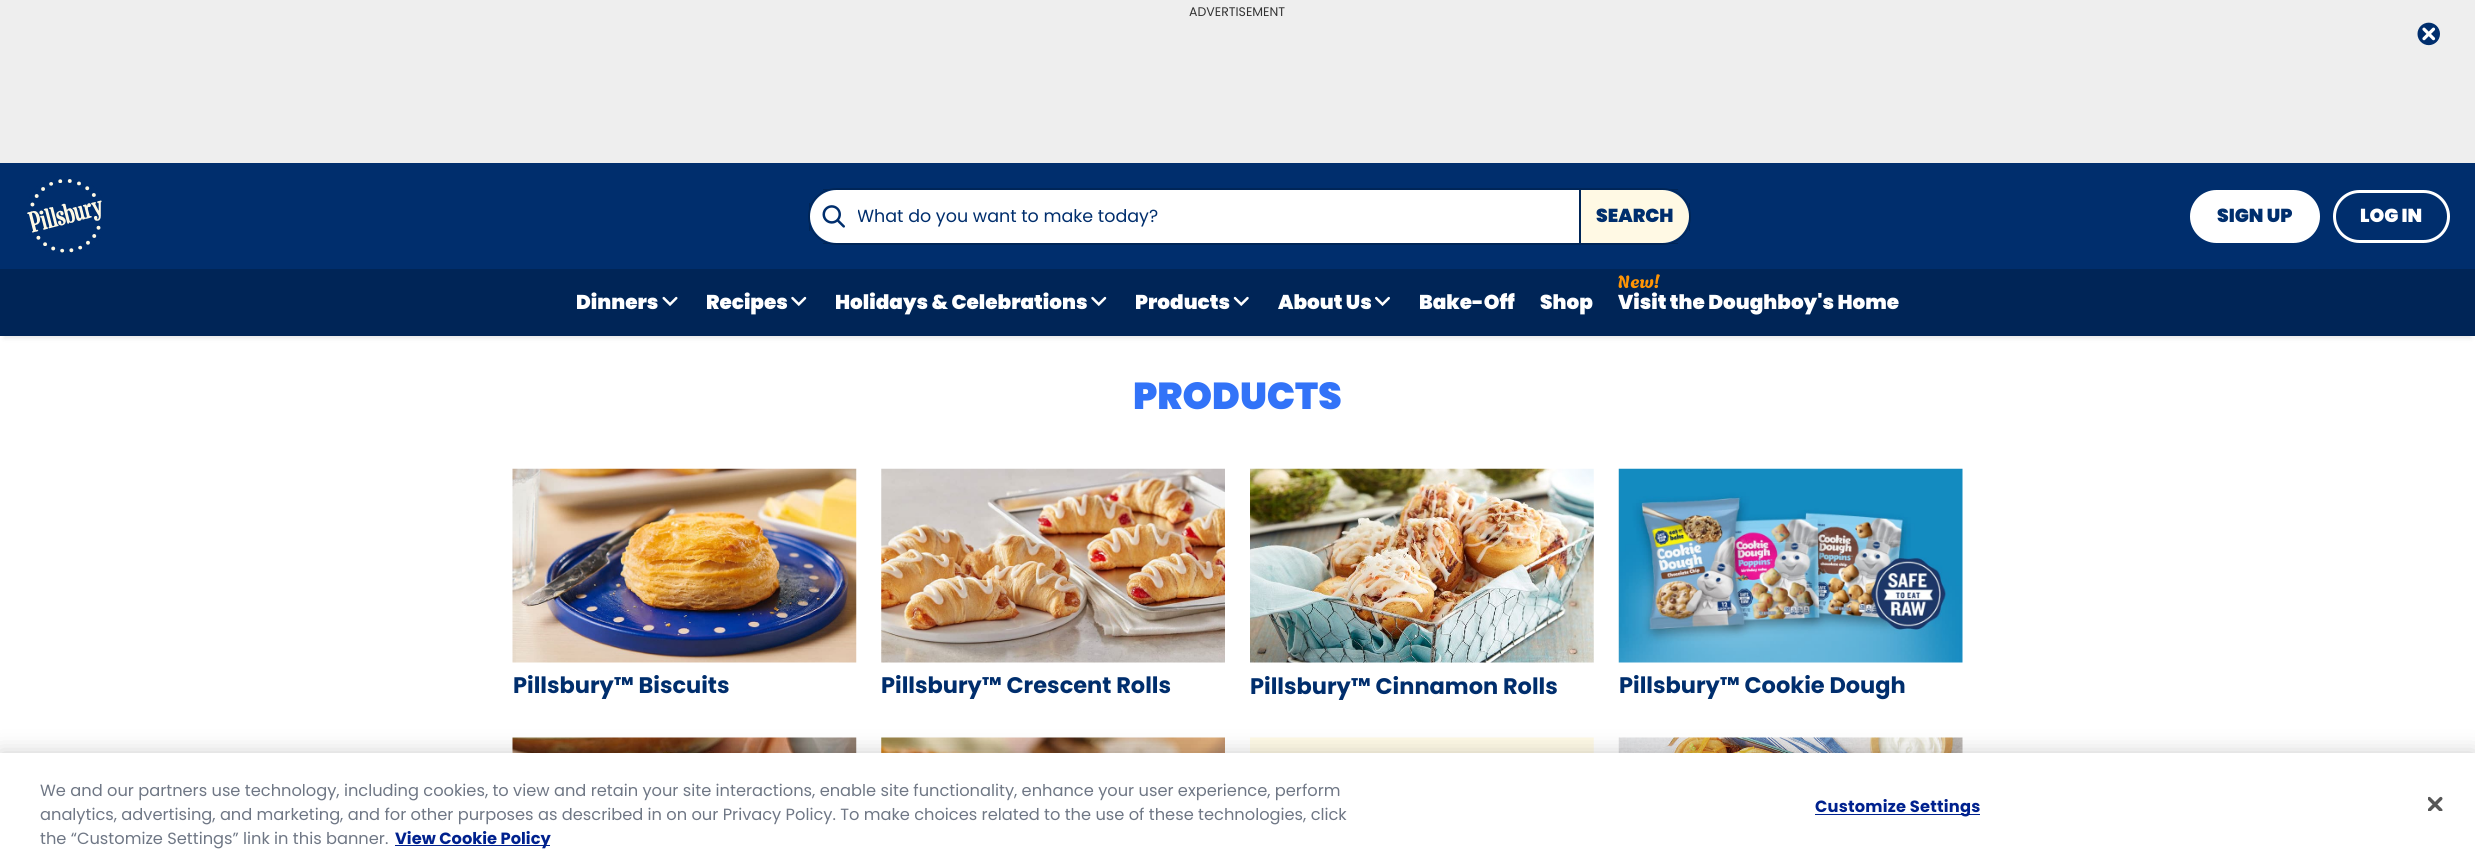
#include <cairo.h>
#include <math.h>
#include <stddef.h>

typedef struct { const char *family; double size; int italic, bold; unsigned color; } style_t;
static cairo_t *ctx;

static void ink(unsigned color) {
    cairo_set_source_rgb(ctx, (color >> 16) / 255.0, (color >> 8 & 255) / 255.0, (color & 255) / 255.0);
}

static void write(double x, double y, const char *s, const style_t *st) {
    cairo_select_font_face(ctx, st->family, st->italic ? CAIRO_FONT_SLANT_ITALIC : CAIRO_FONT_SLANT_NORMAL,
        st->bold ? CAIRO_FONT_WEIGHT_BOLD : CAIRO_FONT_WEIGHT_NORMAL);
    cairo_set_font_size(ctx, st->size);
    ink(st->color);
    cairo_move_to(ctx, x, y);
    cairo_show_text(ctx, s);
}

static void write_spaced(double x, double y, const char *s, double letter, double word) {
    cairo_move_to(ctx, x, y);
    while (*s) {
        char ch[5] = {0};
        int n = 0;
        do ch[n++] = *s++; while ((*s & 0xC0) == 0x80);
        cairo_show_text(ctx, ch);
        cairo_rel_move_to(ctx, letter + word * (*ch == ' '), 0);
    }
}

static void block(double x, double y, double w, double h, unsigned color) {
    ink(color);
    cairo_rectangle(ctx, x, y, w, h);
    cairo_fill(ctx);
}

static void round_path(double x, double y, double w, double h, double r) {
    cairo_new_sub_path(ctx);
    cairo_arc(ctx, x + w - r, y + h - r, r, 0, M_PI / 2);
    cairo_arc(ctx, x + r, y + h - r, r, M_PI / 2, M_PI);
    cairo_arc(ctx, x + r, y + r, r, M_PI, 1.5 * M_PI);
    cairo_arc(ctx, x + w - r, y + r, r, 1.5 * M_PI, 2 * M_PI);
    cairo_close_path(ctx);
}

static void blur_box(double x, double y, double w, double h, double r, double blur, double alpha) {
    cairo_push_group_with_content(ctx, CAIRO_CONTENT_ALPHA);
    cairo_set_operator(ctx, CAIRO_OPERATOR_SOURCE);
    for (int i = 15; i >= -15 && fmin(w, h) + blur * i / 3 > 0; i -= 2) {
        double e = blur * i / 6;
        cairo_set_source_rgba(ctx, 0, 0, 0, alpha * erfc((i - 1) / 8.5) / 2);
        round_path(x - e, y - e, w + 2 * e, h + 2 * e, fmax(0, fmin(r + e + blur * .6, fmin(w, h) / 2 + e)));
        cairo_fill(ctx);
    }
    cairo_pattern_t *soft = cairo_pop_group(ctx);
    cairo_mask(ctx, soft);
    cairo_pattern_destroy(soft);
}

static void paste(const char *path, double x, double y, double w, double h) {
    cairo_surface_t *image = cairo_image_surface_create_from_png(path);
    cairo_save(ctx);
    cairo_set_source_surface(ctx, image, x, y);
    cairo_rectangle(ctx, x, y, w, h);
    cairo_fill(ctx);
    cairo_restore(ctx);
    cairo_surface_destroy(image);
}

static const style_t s1 = {"Poppins", 12.5, 0, 0, 0x333333};
static const style_t s2 = {"Poppins", 17.5, 0, 0, 0x002e6d};
static const style_t s3 = {"Poppins Black", 18.75, 0, 0, 0x002e6d};
static const style_t s4 = {"Poppins Black", 18.75, 0, 0, 0xffffff};
static const style_t s5 = {"Poppins Black", 20, 0, 0, 0xffffff};
static const style_t s6 = {"Agbalumo", 17.5, 0, 0, 0xff9404};
static const style_t s7 = {"Poppins Black", 37.5, 0, 0, 0x3273f8};
static const style_t s8 = {"Poppins", 22.5, 0, 1, 0x002e6d};
static const style_t s9 = {"Poppins", 16.25, 0, 0, 0x6f7785};
static const style_t s10 = {"Poppins", 16.25, 0, 1, 0x00218e};

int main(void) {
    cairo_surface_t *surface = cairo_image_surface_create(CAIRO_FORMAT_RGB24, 2475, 863);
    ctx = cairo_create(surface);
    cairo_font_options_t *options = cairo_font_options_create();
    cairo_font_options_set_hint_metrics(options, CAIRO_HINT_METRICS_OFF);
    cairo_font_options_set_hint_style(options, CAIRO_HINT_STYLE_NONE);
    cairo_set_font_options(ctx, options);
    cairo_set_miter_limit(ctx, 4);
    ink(0xffffff);
    cairo_paint(ctx);
    ink(0x000000);
    blur_box(4, 171, 2467, 167, 0, 2.5, 0.1);
    block(0, 0, 2475, 163, 0xeeeeee);
    write(1189, 16, "ADVERTISEMENT", &s1);
    ink(0xffffff);
    round_path(2418, 23, 22, 22, 10);
    cairo_fill(ctx);
    paste("pic1.png", 2417, 22, 23, 24);
    block(0, 163, 2475, 106, 0x002e6d);
    paste("pic2.png", 27, 179, 75, 74);
    ink(0xffffff);
    cairo_new_path(ctx);
    cairo_move_to(ctx, 836.5, 190);
    cairo_line_to(ctx, 1579, 190);
    cairo_line_to(ctx, 1579, 243);
    cairo_line_to(ctx, 836.5, 243);
    cairo_curve_to(ctx, 822, 243, 810, 231, 810, 216.5);
    cairo_curve_to(ctx, 810, 202, 822, 190, 836.5, 190);
    cairo_close_path(ctx);
    cairo_fill(ctx);
    cairo_new_path(ctx);
    cairo_move_to(ctx, 836.5, 188.5);
    cairo_line_to(ctx, 1579.5, 188.5);
    cairo_line_to(ctx, 1579.5, 244.5);
    cairo_line_to(ctx, 836.5, 244.5);
    cairo_curve_to(ctx, 821, 244.5, 808.5, 232, 808.5, 216.5);
    cairo_curve_to(ctx, 808.5, 201, 821, 188.5, 836.5, 188.5);
    cairo_close_path(ctx);
    ink(0x002557);
    cairo_set_line_width(ctx, 1);
    cairo_stroke(ctx);
    paste("pic3.png", 822, 205, 23, 23);
    block(823, 189, 757, 1, 0x002557);
    block(823, 243, 757, 1, 0x002557);
    block(809, 203, 1, 28, 0x002557);
    cairo_save(ctx);
    cairo_rectangle(ctx, 858, 204, 673, 26);
    cairo_clip(ctx);
    write(857, 222, "What do you want to make today?", &s2);
    cairo_restore(ctx);
    ink(0xfff9e4);
    cairo_new_path(ctx);
    cairo_move_to(ctx, 1581, 190);
    cairo_line_to(ctx, 1662.5, 190);
    cairo_curve_to(ctx, 1677, 190, 1689, 202, 1689, 216.5);
    cairo_curve_to(ctx, 1689, 231, 1677, 243, 1662.5, 243);
    cairo_line_to(ctx, 1581, 243);
    cairo_close_path(ctx);
    cairo_fill(ctx);
    cairo_new_path(ctx);
    cairo_move_to(ctx, 1580.5, 188.5);
    cairo_line_to(ctx, 1662.5, 188.5);
    cairo_curve_to(ctx, 1678, 188.5, 1690.5, 201, 1690.5, 216.5);
    cairo_curve_to(ctx, 1690.5, 232, 1678, 244.5, 1662.5, 244.5);
    cairo_line_to(ctx, 1580.5, 244.5);
    cairo_close_path(ctx);
    ink(0x002557);
    cairo_stroke(ctx);
    block(1580, 189, 98, 1, 0x002557);
    block(1689, 203, 1, 28, 0x002557);
    block(1580, 243, 98, 1, 0x002557);
    write(1596, 222, "SEARCH", &s3);
    ink(0xffffff);
    round_path(2191.5, 191.5, 127, 50, 25);
    cairo_fill_preserve(ctx);
    cairo_set_line_width(ctx, 3);
    cairo_stroke(ctx);
    write(2217, 222, "SIGN UP", &s3);
    round_path(2334.5, 191.5, 114, 50, 25);
    ink(0xffffff);
    cairo_stroke(ctx);
    write(2360, 222, "LOG IN", &s4);
    block(0, 269, 2475, 67, 0x002557);
    write(576, 309, "Dinners", &s5);
    paste("pic4.png", 662, 296, 16, 10);
    write(706, 309, "Recipes", &s5);
    paste("pic5.png", 791, 296, 16, 10);
    write(835, 309, "Holidays & Celebrations", &s5);
    paste("pic5.png", 1091, 296, 16, 10);
    write(1135, 309, "Products", &s5);
    paste("pic6.png", 1233, 296, 16, 10);
    write(1278, 309, "About Us", &s5);
    paste("pic7.png", 1375, 296, 15, 10);
    write(1419, 309, "Bake-Off", &s5);
    write(1540, 309, "Shop", &s5);
    write(1618, 288, "New!", &s6);
    write(1618, 309, "Visit the Doughboy's Home", &s5);
    write(1133, 409, "PRODUCTS", &s7);
    paste("pic8.png", 512, 468, 345, 195);
    write(513, 693, "Pillsbury™ Biscuits", &s8);
    paste("pic9.png", 881, 468, 344, 195);
    write(881, 693, "Pillsbury™ Crescent Rolls", &s8);
    paste("pic10.png", 1250, 468, 344, 195);
    write(1250, 694, "Pillsbury™ Cinnamon Rolls", &s8);
    paste("pic11.png", 1618, 468, 345, 195);
    write(1619, 693, "Pillsbury™ Cookie Dough", &s8);
    paste("pic12.png", 512, 737, 345, 16);
    paste("pic13.png", 881, 737, 344, 16);
    paste("pic14.png", 1250, 737, 344, 16);
    paste("pic15.png", 1618, 737, 345, 16);
    ink(0x000000);
    blur_box(0, 753, 2475, 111, 0, 11, 0.2);
    block(0, 753, 2475, 110, 0xffffff);
    write(40, 796, "We and our partners use technology, including cookies, to view and retain your site interactions, enable site functionality, enhance your user experience, perform", &s9);
    write(40, 820, "analytics, advertising, and marketing, and for other purposes as described in on our Privacy Policy. To make choices related to the use of these technologies, click", &s9);
    write(40, 844, "the “Customize Settings” link in this banner.", &s9);
    block(395, 845, 155, 1, 0x00218e);
    write(395, 844, "View Cookie Policy", &s10);
    block(1815, 814, 165, 1, 0x00218e);
    write_spaced(1815, 812, "Customize Settings", 0.2, 0);
    paste("pic16.png", 2428, 796, 15, 15);
    cairo_surface_write_to_png(surface, "screenshot.png");
    cairo_font_options_destroy(options);
    cairo_destroy(ctx);
    cairo_surface_destroy(surface);
    return 0;
}
